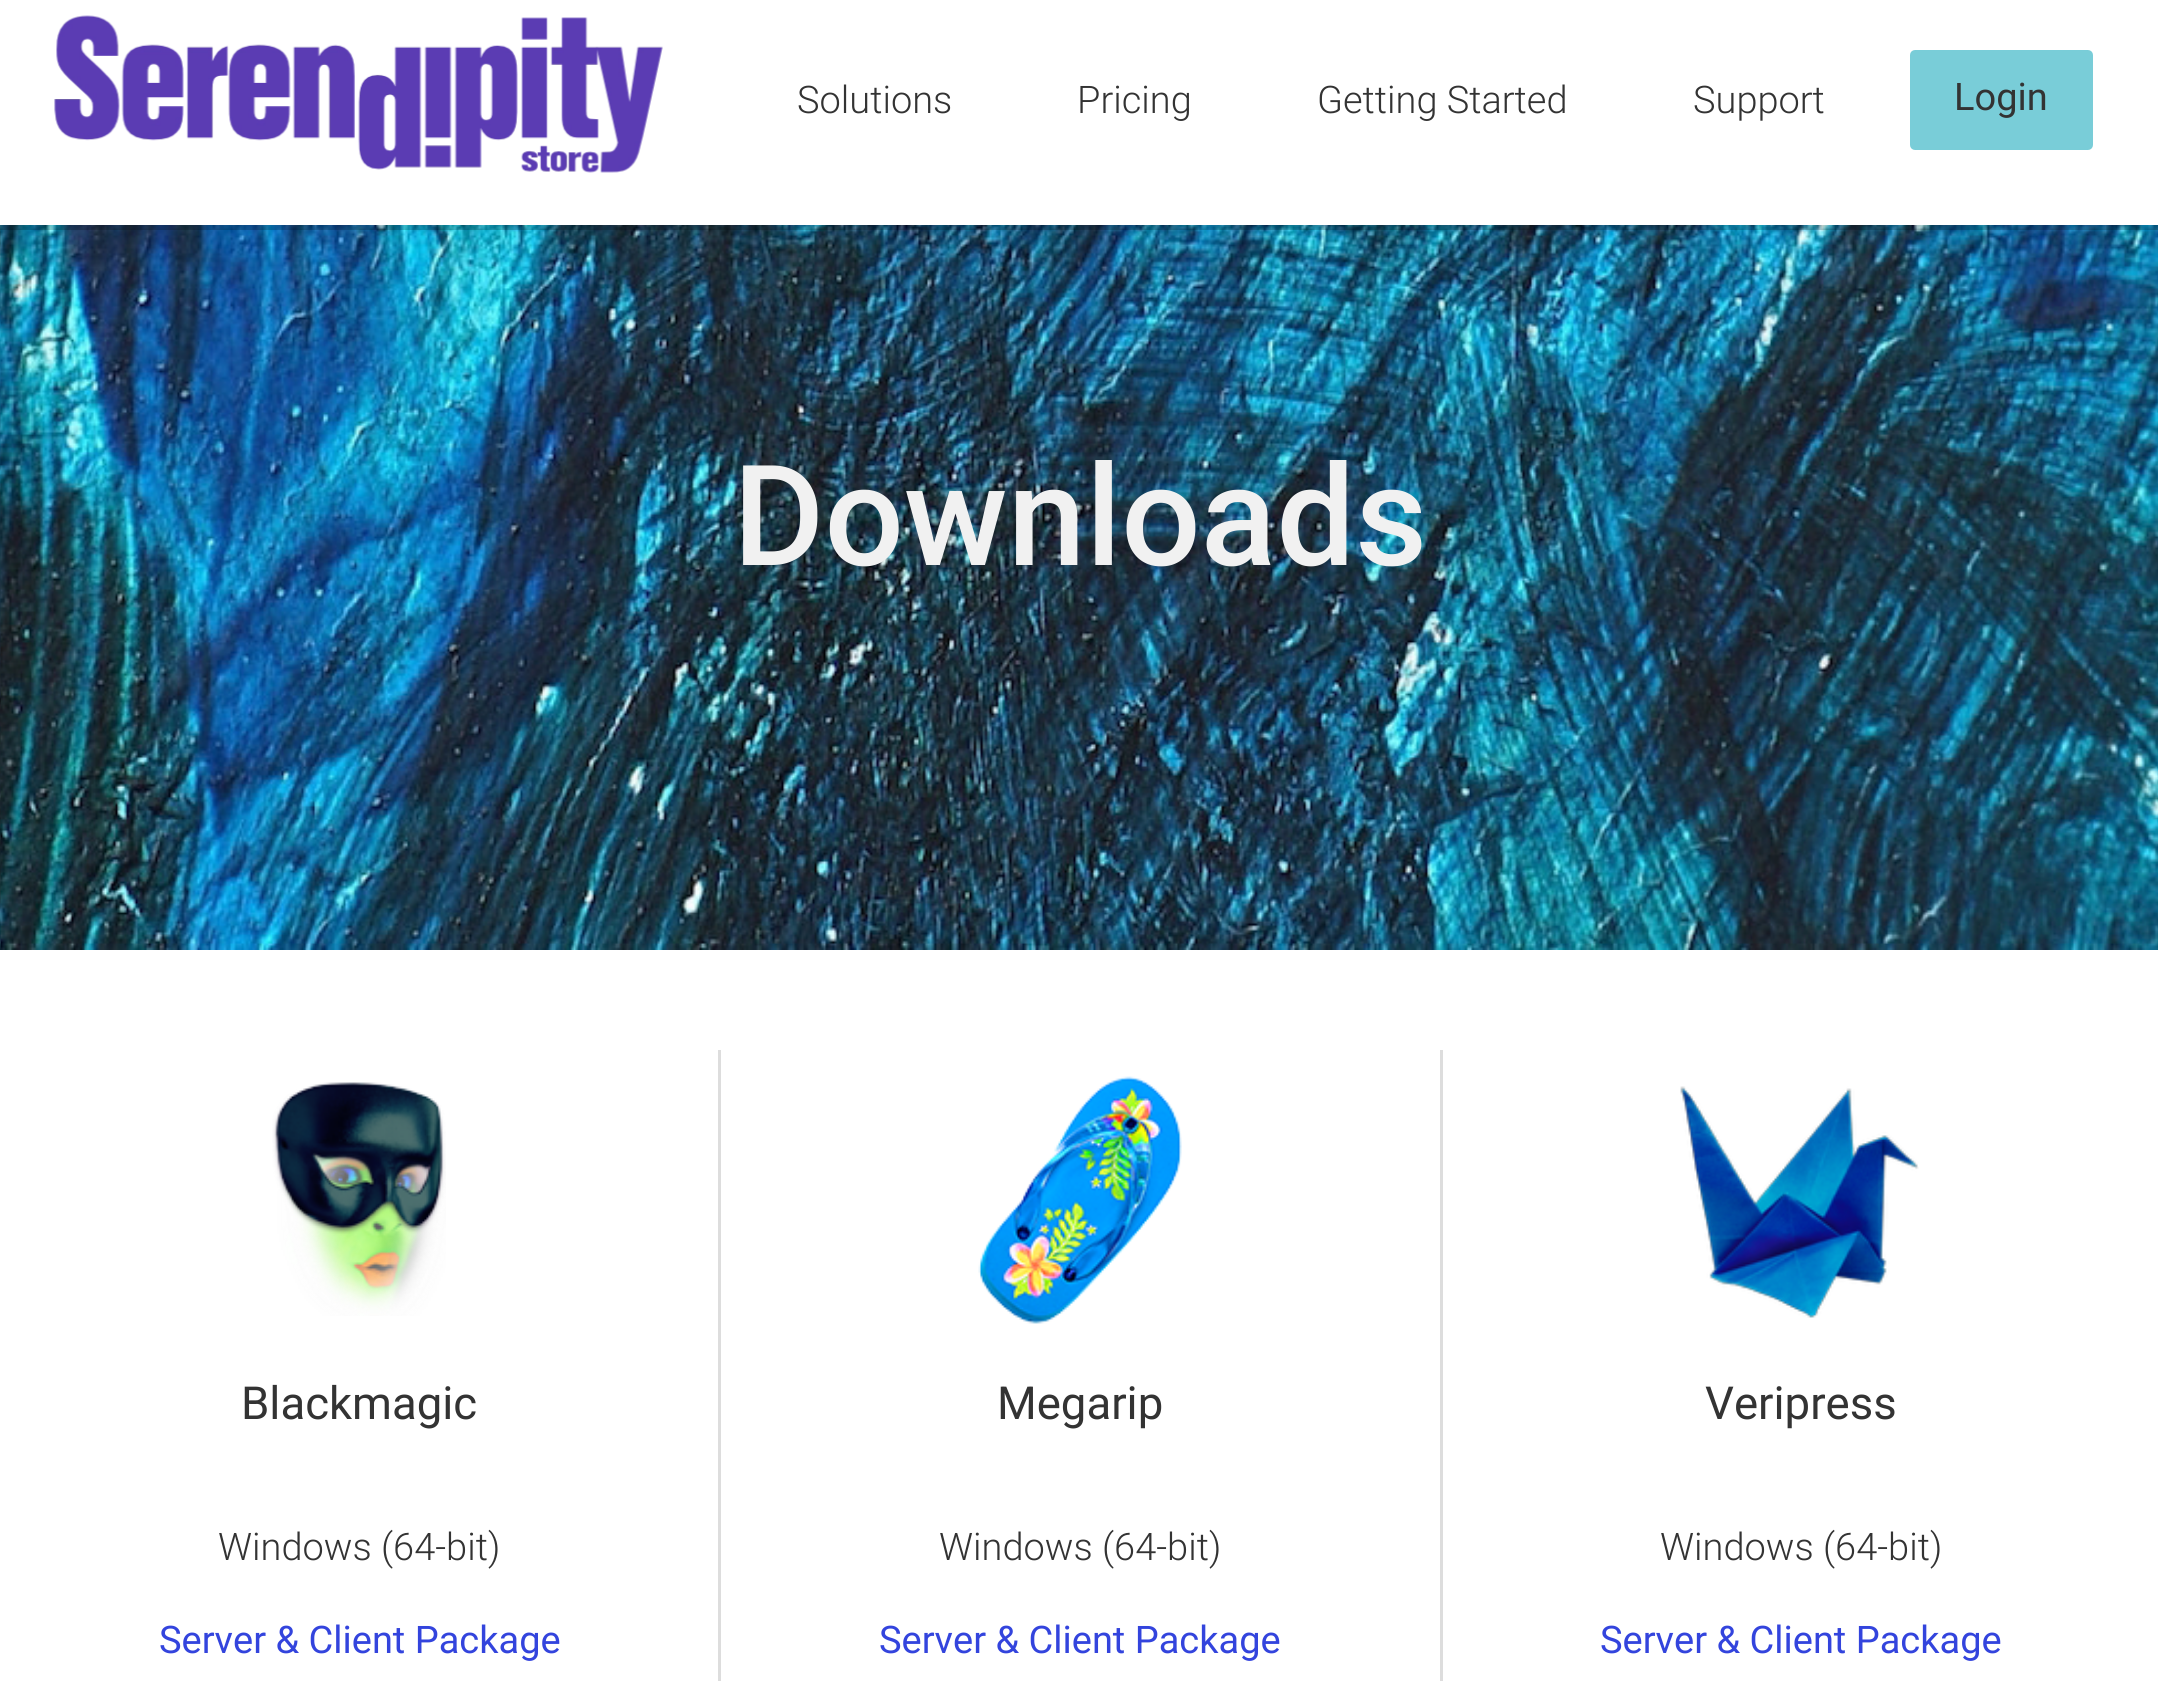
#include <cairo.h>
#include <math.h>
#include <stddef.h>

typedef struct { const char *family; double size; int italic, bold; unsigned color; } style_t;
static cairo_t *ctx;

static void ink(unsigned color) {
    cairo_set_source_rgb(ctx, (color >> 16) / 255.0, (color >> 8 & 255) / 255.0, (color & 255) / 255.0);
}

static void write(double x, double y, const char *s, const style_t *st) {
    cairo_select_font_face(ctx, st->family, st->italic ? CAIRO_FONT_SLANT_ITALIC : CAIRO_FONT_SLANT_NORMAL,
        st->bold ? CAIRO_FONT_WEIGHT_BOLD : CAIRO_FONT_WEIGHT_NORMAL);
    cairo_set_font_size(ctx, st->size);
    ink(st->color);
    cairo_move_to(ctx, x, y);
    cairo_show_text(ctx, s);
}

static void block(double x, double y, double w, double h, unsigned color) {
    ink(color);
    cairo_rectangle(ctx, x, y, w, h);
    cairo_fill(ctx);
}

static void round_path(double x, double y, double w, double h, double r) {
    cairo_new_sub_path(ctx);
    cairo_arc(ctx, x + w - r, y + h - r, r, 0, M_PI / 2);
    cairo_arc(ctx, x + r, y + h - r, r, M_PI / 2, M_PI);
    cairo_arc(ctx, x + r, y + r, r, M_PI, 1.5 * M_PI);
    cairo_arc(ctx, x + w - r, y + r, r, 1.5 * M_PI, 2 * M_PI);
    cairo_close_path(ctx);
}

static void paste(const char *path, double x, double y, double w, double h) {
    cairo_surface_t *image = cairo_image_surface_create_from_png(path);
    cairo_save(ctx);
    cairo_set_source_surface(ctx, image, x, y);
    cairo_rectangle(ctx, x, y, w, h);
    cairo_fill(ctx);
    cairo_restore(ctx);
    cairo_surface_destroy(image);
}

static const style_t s1 = {"Roboto Light", 38, 0, 0, 0x333333};
static const style_t s2 = {"Roboto", 38, 0, 0, 0x333333};
static const style_t s3 = {"Roboto Medium", 140, 0, 0, 0xf1f1f1};
static const style_t s4 = {"Roboto", 45.5, 0, 0, 0x333333};
static const style_t s5 = {"Roboto", 38, 0, 0, 0x3344dd};

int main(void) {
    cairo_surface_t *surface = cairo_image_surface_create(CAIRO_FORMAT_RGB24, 2158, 1681);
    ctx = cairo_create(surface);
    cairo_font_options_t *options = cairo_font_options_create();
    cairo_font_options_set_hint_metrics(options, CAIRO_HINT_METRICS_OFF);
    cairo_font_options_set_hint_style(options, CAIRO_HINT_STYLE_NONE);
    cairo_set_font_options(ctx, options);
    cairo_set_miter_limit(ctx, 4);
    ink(0xffffff);
    cairo_paint(ctx);
    paste("pic2.png", 0, 225, 2158, 725);
    cairo_set_source_rgba(ctx, 0, 0, 0, 0.2);
    cairo_rectangle(ctx, 0, 225, 2158, 5);
    cairo_fill(ctx);
    paste("pic1.png", 54, 15, 609, 158);
    write(797, 113, "Solutions", &s1);
    write(1077, 113, "Pricing", &s1);
    write(1317, 113, "Getting Started", &s1);
    write(1693, 113, "Support", &s1);
    ink(0x79cdd8);
    round_path(1912.5, 52.5, 178, 95, 2.5);
    cairo_fill_preserve(ctx);
    cairo_set_line_width(ctx, 5);
    cairo_stroke(ctx);
    write(1954, 110, "Login", &s2);
    write(733, 565, "Downloads", &s3);
    paste("pic3.png", 272, 1082, 174, 234);
    write(241, 1419, "Blackmagic", &s4);
    write(218, 1560, "Windows (64-bit)", &s1);
    write(159, 1653, "Server & Client Package", &s5);
    block(1440, 1050, 3, 631, 0xdddddd);
    block(718, 1050, 3, 631, 0xdddddd);
    paste("pic4.png", 978, 1076, 204, 248);
    write(997, 1419, "Megarip", &s4);
    write(939, 1560, "Windows (64-bit)", &s1);
    write(879, 1653, "Server & Client Package", &s5);
    paste("pic5.png", 1680, 1086, 239, 232);
    write(1705, 1419, "Veripress", &s4);
    write(1660, 1560, "Windows (64-bit)", &s1);
    write(1600, 1653, "Server & Client Package", &s5);
    cairo_surface_write_to_png(surface, "screenshot.png");
    cairo_font_options_destroy(options);
    cairo_destroy(ctx);
    cairo_surface_destroy(surface);
    return 0;
}
